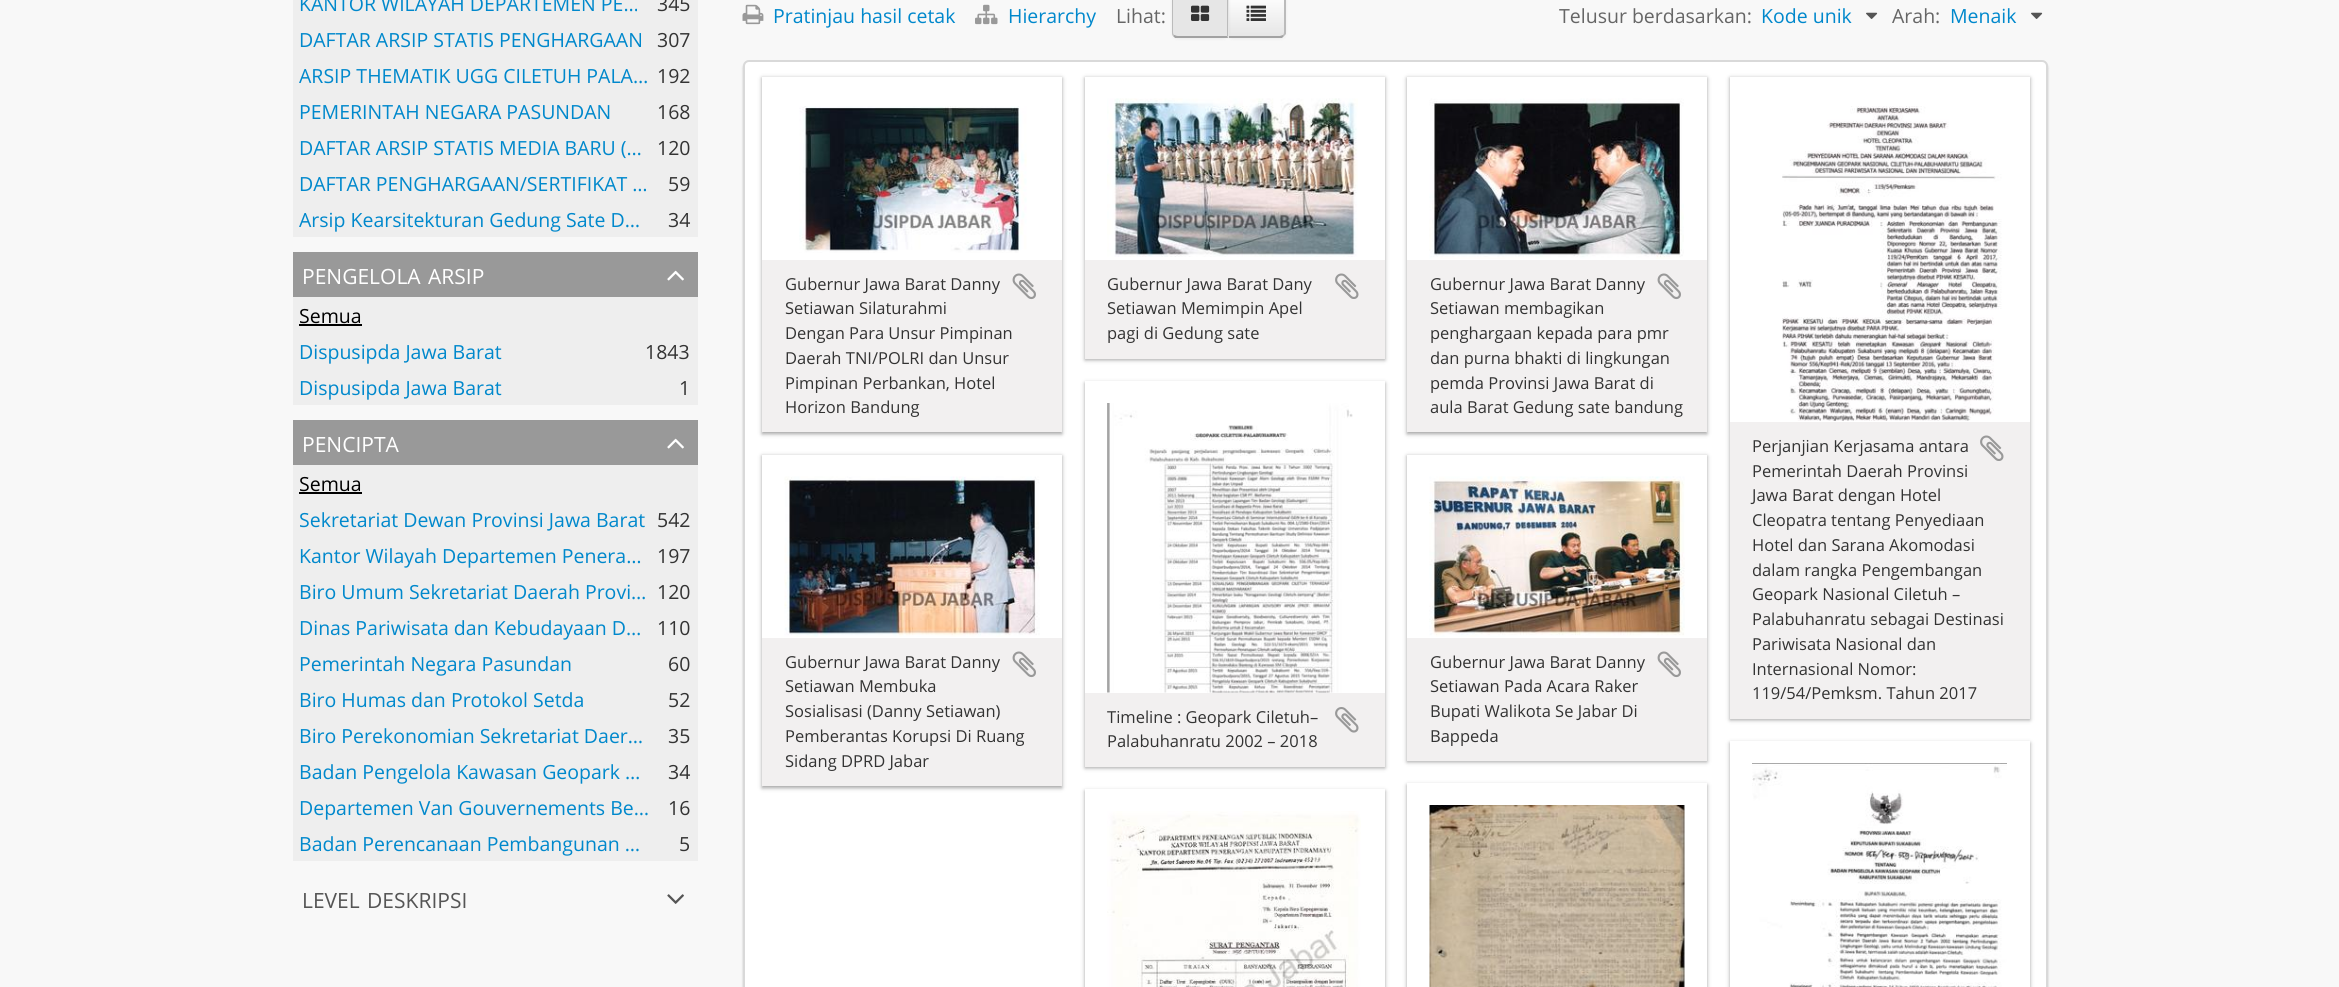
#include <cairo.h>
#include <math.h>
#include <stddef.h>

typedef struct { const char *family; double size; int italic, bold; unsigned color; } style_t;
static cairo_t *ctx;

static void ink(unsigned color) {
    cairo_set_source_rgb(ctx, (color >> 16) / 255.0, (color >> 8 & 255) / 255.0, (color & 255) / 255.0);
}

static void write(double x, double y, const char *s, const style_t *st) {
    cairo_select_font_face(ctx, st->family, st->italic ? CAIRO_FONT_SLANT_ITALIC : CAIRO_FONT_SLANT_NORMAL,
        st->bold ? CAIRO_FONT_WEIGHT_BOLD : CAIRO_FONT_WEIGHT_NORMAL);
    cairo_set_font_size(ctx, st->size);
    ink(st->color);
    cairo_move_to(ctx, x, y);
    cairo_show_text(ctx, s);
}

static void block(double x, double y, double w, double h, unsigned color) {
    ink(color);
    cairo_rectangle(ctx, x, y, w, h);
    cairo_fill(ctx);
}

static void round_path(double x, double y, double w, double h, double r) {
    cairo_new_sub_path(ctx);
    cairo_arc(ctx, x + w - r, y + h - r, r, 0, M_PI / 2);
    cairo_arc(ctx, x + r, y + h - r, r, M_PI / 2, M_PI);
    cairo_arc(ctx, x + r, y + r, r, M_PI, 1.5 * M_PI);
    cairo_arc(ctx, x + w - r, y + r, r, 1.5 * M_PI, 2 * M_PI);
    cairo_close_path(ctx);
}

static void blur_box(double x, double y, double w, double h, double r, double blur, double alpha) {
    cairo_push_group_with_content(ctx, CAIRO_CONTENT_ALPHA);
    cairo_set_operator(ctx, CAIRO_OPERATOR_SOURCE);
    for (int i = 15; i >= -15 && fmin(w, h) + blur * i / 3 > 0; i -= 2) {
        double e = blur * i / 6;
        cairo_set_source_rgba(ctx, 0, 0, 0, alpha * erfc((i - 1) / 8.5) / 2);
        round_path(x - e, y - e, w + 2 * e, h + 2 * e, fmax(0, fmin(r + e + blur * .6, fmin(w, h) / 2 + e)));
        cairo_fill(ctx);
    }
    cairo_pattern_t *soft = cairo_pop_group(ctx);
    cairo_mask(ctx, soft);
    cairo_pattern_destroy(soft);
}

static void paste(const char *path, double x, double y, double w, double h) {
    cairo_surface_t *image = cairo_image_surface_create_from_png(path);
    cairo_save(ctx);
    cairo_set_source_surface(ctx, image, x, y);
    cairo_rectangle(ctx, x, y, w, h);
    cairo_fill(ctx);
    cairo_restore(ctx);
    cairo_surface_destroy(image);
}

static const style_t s1 = {"Open Sans", 19.5, 0, 0, 0x0088cc};
static const style_t s2 = {"Open Sans", 19.5, 0, 0, 0x333333};
static const style_t s3 = {"Open Sans", 21, 0, 0, 0xffffff};
static const style_t s4 = {"Open Sans", 19.5, 0, 0, 0x000000};
static const style_t s5 = {"Open Sans", 21, 0, 0, 0x555555};
static const style_t s6 = {"Open Sans", 19.5, 0, 0, 0x666666};
static const style_t s7 = {"Open Sans", 16.5, 0, 0, 0x333333};

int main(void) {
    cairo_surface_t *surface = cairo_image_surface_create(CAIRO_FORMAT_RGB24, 2339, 987);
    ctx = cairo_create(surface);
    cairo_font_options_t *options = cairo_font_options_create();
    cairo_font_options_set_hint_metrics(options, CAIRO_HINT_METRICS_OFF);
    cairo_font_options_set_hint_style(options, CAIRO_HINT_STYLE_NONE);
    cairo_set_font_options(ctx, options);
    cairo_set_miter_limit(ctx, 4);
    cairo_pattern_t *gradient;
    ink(0xf8f8f8);
    cairo_paint(ctx);
    block(293, 0, 405, 237, 0xeeeeee);
    write(299, 11, "KANTOR WILAYAH DEPARTEMEN PE…", &s1);
    write(657, 11, "345", &s2);
    write(299, 47, "DAFTAR ARSIP STATIS PENGHARGAAN", &s1);
    write(657, 47, "307", &s2);
    write(299, 83, "ARSIP THEMATIK UGG CILETUH PALA…", &s1);
    write(657, 83, "192", &s2);
    write(299, 119, "PEMERINTAH NEGARA PASUNDAN", &s1);
    write(657, 119, "168", &s2);
    write(299, 155, "DAFTAR ARSIP STATIS MEDIA BARU (…", &s1);
    write(657, 155, "120", &s2);
    write(299, 191, "DAFTAR PENGHARGAAN/SERTIFIKAT …", &s1);
    write(668, 191, "59", &s2);
    write(299, 227, "Arsip Kearsitekturan Gedung Sate D…", &s1);
    write(668, 227, "34", &s2);
    block(293, 252, 405, 45, 0x999999);
    write(302, 284, "PENGELOLA", &s3);
    write(428, 284, "ARSIP", &s3);
    paste("pic1.png", 667, 270, 17, 11);
    block(293, 297, 405, 108, 0xeeeeee);
    write(299, 323, "Semua", &s4);
    block(299, 324, 63, 2, 0x000000);
    write(299, 359, "Dispusipda Jawa Barat", &s1);
    write(645, 359, "1843", &s2);
    write(299, 395, "Dispusipda Jawa Barat", &s1);
    write(679, 395, "1", &s2);
    block(293, 420, 405, 45, 0x999999);
    write(302, 452, "PENCIPTA", &s3);
    paste("pic1.png", 667, 438, 17, 11);
    block(293, 465, 405, 396, 0xeeeeee);
    write(299, 491, "Semua", &s4);
    block(299, 492, 63, 2, 0x000000);
    write(299, 527, "Sekretariat Dewan Provinsi Jawa Barat", &s1);
    write(657, 527, "542", &s2);
    write(299, 563, "Kantor Wilayah Departemen Penera…", &s1);
    write(657, 563, "197", &s2);
    write(299, 599, "Biro Umum Sekretariat Daerah Provi…", &s1);
    write(657, 599, "120", &s2);
    write(299, 635, "Dinas Pariwisata dan Kebudayaan D…", &s1);
    write(657, 635, "110", &s2);
    write(299, 671, "Pemerintah Negara Pasundan", &s1);
    write(668, 671, "60", &s2);
    write(299, 707, "Biro Humas dan Protokol Setda", &s1);
    write(668, 707, "52", &s2);
    write(299, 743, "Biro Perekonomian Sekretariat Daer…", &s1);
    write(668, 743, "35", &s2);
    write(299, 779, "Badan Pengelola Kawasan Geopark …", &s1);
    write(668, 779, "34", &s2);
    write(299, 815, "Departemen Van Gouvernements Be…", &s1);
    write(668, 815, "16", &s2);
    write(299, 851, "Badan Perencanaan Pembangunan …", &s1);
    write(679, 851, "5", &s2);
    write(302, 908, "LEVEL", &s5);
    write(367, 908, "DESKRIPSI", &s5);
    paste("pic2.png", 667, 894, 17, 10);
    paste("pic3.png", 742, 4, 22, 21);
    write(773, 23, "Pratinjau hasil cetak", &s1);
    paste("pic4.png", 975, 4, 23, 21);
    write(1008, 23, "Hierarchy", &s1);
    write(1116, 23, "Lihat:", &s6);
    ink(0x000000);
    blur_box(1227, -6, 59, 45, 6, 1.5, 0.05);
    ink(0xf5f5f5);
    cairo_new_path(ctx);
    cairo_move_to(ctx, 1227, -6);
    cairo_line_to(ctx, 1280, -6);
    cairo_curve_to(ctx, 1283.5, -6, 1286, -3.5, 1286, 0);
    cairo_line_to(ctx, 1286, 32);
    cairo_curve_to(ctx, 1286, 35.5, 1283.5, 38, 1280, 38);
    cairo_line_to(ctx, 1227, 38);
    cairo_close_path(ctx);
    cairo_fill(ctx);
    cairo_save(ctx);
    cairo_new_path(ctx);
    cairo_move_to(ctx, 1227, -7);
    cairo_line_to(ctx, 1280, -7);
    cairo_curve_to(ctx, 1283.5, -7, 1286, -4.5, 1286, -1);
    cairo_line_to(ctx, 1286, 32);
    cairo_curve_to(ctx, 1286, 35.5, 1283.5, 38, 1280, 38);
    cairo_line_to(ctx, 1227, 38);
    cairo_close_path(ctx);
    cairo_clip(ctx);
    gradient = cairo_pattern_create_linear(1256, -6, 1256, 36);
    cairo_pattern_add_color_stop_rgba(gradient, 0, 1, 1, 1, 1);
    cairo_pattern_add_color_stop_rgba(gradient, 1, 0.902, 0.902, 0.902, 1);
    cairo_set_source(ctx, gradient);
    cairo_pattern_destroy(gradient);
    cairo_rectangle(ctx, 1229, 0, 57, 36);
    cairo_fill(ctx);
    cairo_restore(ctx);
    ink(0xbbbbbb);
    cairo_new_path(ctx);
    cairo_move_to(ctx, 1286, 34);
    cairo_line_to(ctx, 1284, 36);
    cairo_line_to(ctx, 1283, 35);
    cairo_curve_to(ctx, 1284, 34, 1284, 33, 1284, 32);
    cairo_line_to(ctx, 1284, -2);
    cairo_curve_to(ctx, 1284, -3, 1284, -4, 1283, -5);
    cairo_line_to(ctx, 1284, -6);
    cairo_line_to(ctx, 1286, -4);
    cairo_close_path(ctx);
    cairo_fill(ctx);
    ink(0xa2a2a2);
    cairo_new_path(ctx);
    cairo_move_to(ctx, 1282, 38);
    cairo_line_to(ctx, 1227, 38);
    cairo_line_to(ctx, 1228, 36);
    cairo_line_to(ctx, 1280, 36);
    cairo_line_to(ctx, 1283, 35);
    cairo_line_to(ctx, 1284, 36);
    cairo_close_path(ctx);
    cairo_fill(ctx);
    ink(0x000000);
    blur_box(1172, -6, 57, 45, 6, 1.5, 0.05);
    ink(0xe6e6e6);
    cairo_new_path(ctx);
    cairo_move_to(ctx, 1178, -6);
    cairo_line_to(ctx, 1229, -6);
    cairo_line_to(ctx, 1229, 38);
    cairo_line_to(ctx, 1178, 38);
    cairo_curve_to(ctx, 1174.5, 38, 1172, 35.5, 1172, 32);
    cairo_line_to(ctx, 1172, 0);
    cairo_curve_to(ctx, 1172, -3.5, 1174.5, -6, 1178, -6);
    cairo_close_path(ctx);
    cairo_fill(ctx);
    ink(0xbbbbbb);
    cairo_new_path(ctx);
    cairo_move_to(ctx, 1228, -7);
    cairo_line_to(ctx, 1228, 37);
    cairo_line_to(ctx, 1227, 36);
    cairo_line_to(ctx, 1227, -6);
    cairo_close_path(ctx);
    cairo_fill(ctx);
    ink(0xa2a2a2);
    cairo_new_path(ctx);
    cairo_move_to(ctx, 1175, 38);
    cairo_line_to(ctx, 1173, 36);
    cairo_line_to(ctx, 1174, 35);
    cairo_curve_to(ctx, 1175, 35, 1176, 36, 1178, 36);
    cairo_line_to(ctx, 1227, 36);
    cairo_line_to(ctx, 1228, 38);
    cairo_close_path(ctx);
    cairo_fill(ctx);
    ink(0xbbbbbb);
    cairo_new_path(ctx);
    cairo_move_to(ctx, 1173, 36);
    cairo_curve_to(ctx, 1172, 35, 1172, 33, 1172, 32);
    cairo_line_to(ctx, 1172, -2);
    cairo_curve_to(ctx, 1172, -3, 1172, -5, 1173, -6);
    cairo_line_to(ctx, 1174, -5);
    cairo_curve_to(ctx, 1173, -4, 1173, -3, 1173, -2);
    cairo_line_to(ctx, 1173, 32);
    cairo_curve_to(ctx, 1173, 33, 1173, 34, 1174, 35);
    cairo_close_path(ctx);
    cairo_fill(ctx);
    paste("pic5.png", 1191, 5, 19, 16);
    paste("pic6.png", 1246, 5, 20, 16);
    write(1559, 23, "Telusur berdasarkan:", &s6);
    write(1761, 23, "Kode unik", &s1);
    paste("pic7.png", 1866, 12, 12, 7);
    write(1892, 23, "Arah:", &s6);
    write(1950, 23, "Menaik", &s1);
    paste("pic7.png", 2031, 12, 12, 7);
    ink(0x000000);
    blur_box(743, 62, 1305, 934, 6, 1, 0.2);
    ink(0xffffff);
    round_path(744, 61, 1303, 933, 5);
    cairo_fill_preserve(ctx);
    ink(0xd9d9d9);
    cairo_stroke(ctx);
    cairo_save(ctx);
    cairo_set_fill_rule(ctx, CAIRO_FILL_RULE_EVEN_ODD);
    cairo_new_path(ctx);
    cairo_move_to(ctx, 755, 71);
    cairo_line_to(ctx, 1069, 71);
    cairo_line_to(ctx, 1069, 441);
    cairo_line_to(ctx, 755, 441);
    cairo_close_path(ctx);
    cairo_move_to(ctx, 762, 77);
    cairo_line_to(ctx, 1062, 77);
    cairo_line_to(ctx, 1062, 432);
    cairo_line_to(ctx, 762, 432);
    cairo_close_path(ctx);
    cairo_clip(ctx);
    ink(0x191919);
    blur_box(762, 78, 300, 356, 0, 2, 0.4);
    cairo_restore(ctx);
    paste("pic8.png", 799, 106, 228, 147);
    block(762, 260, 300, 172, 0xf2f0f0);
    write(785, 290, "Gubernur Jawa Barat Danny", &s7);
    paste("pic9.png", 1012, 273, 24, 27);
    write(785, 314, "Setiawan Silaturahmi", &s7);
    write(785, 339, "Dengan Para Unsur Pimpinan", &s7);
    write(785, 364, "Daerah TNI/POLRI dan Unsur", &s7);
    write(785, 389, "Pimpinan Perbankan, Hotel", &s7);
    write(785, 413, "Horizon Bandung", &s7);
    ink(0x191919);
    blur_box(1085, 78, 300, 282, 0, 2, 0.4);
    block(1085, 77, 300, 183, 0xffffff);
    paste("pic10.png", 1107, 98, 251, 159);
    block(1085, 260, 300, 99, 0xf2f0f0);
    write(1107, 290, "Gubernur Jawa Barat Dany", &s7);
    paste("pic11.png", 1335, 273, 24, 26);
    write(1107, 314, "Setiawan Memimpin Apel", &s7);
    write(1107, 339, "pagi di Gedung sate", &s7);
    cairo_save(ctx);
    cairo_set_fill_rule(ctx, CAIRO_FILL_RULE_EVEN_ODD);
    cairo_new_path(ctx);
    cairo_move_to(ctx, 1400, 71);
    cairo_line_to(ctx, 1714, 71);
    cairo_line_to(ctx, 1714, 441);
    cairo_line_to(ctx, 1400, 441);
    cairo_close_path(ctx);
    cairo_move_to(ctx, 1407, 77);
    cairo_line_to(ctx, 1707, 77);
    cairo_line_to(ctx, 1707, 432);
    cairo_line_to(ctx, 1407, 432);
    cairo_close_path(ctx);
    cairo_clip(ctx);
    ink(0x191919);
    blur_box(1407, 78, 300, 356, 0, 2, 0.4);
    cairo_restore(ctx);
    paste("pic12.png", 1429, 98, 255, 161);
    block(1407, 260, 300, 172, 0xf2f0f0);
    write(1430, 290, "Gubernur Jawa Barat Danny", &s7);
    paste("pic9.png", 1657, 273, 24, 27);
    write(1430, 314, "Setiawan membagikan", &s7);
    write(1430, 339, "penghargaan kepada para pmr", &s7);
    write(1430, 364, "dan purna bhakti di lingkungan", &s7);
    write(1430, 389, "pemda Provinsi Jawa Barat di", &s7);
    write(1430, 413, "aula Barat Gedung sate bandung", &s7);
    ink(0x191919);
    blur_box(1730, 78, 300, 642, 0, 2, 0.4);
    block(1730, 77, 300, 345, 0xffffff);
    paste("pic13.png", 1782, 106, 220, 315);
    block(1730, 422, 300, 297, 0xf2f0f0);
    write(1752, 452, "Perjanjian Kerjasama antara", &s7);
    paste("pic11.png", 1980, 435, 24, 26);
    write(1752, 477, "Pemerintah Daerah Provinsi", &s7);
    write(1752, 501, "Jawa Barat dengan Hotel", &s7);
    write(1752, 526, "Cleopatra tentang Penyediaan", &s7);
    write(1752, 551, "Hotel dan Sarana Akomodasi", &s7);
    write(1752, 576, "dalam rangka Pengembangan", &s7);
    write(1752, 600, "Geopark Nasional Ciletuh –", &s7);
    write(1752, 625, "Palabuhanratu sebagai Destinasi", &s7);
    write(1752, 650, "Pariwisata Nasional dan", &s7);
    write(1752, 675, "Internasional Nomor:", &s7);
    write(1752, 699, "119/54/Pemksm. Tahun 2017", &s7);
    cairo_save(ctx);
    cairo_set_fill_rule(ctx, CAIRO_FILL_RULE_EVEN_ODD);
    cairo_new_path(ctx);
    cairo_move_to(ctx, 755, 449);
    cairo_line_to(ctx, 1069, 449);
    cairo_line_to(ctx, 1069, 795);
    cairo_line_to(ctx, 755, 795);
    cairo_close_path(ctx);
    cairo_move_to(ctx, 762, 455);
    cairo_line_to(ctx, 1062, 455);
    cairo_line_to(ctx, 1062, 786);
    cairo_line_to(ctx, 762, 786);
    cairo_close_path(ctx);
    cairo_clip(ctx);
    ink(0x191919);
    blur_box(762, 456, 300, 332, 0, 2, 0.4);
    cairo_restore(ctx);
    paste("pic14.png", 784, 476, 256, 161);
    block(762, 638, 300, 148, 0xf2f0f0);
    write(785, 668, "Gubernur Jawa Barat Danny", &s7);
    paste("pic9.png", 1012, 651, 24, 27);
    write(785, 692, "Setiawan Membuka", &s7);
    write(785, 717, "Sosialisasi (Danny Setiawan)", &s7);
    write(785, 742, "Pemberantas Korupsi Di Ruang", &s7);
    write(785, 767, "Sidang DPRD Jabar", &s7);
    ink(0x191919);
    blur_box(1085, 383, 300, 385, 0, 2, 0.4);
    block(1085, 381, 300, 312, 0xffffff);
    paste("pic15.png", 1107, 403, 246, 290);
    block(1085, 693, 300, 74, 0xf2f0f0);
    write(1107, 723, "Timeline : Geopark Ciletuh–", &s7);
    paste("pic16.png", 1335, 707, 24, 26);
    write(1107, 747, "Palabuhanratu 2002 – 2018", &s7);
    ink(0x191919);
    blur_box(1407, 456, 300, 306, 0, 2, 0.4);
    block(1407, 455, 300, 183, 0xffffff);
    paste("pic17.png", 1429, 476, 256, 161);
    block(1407, 638, 300, 123, 0xf2f0f0);
    write(1430, 668, "Gubernur Jawa Barat Danny", &s7);
    paste("pic9.png", 1657, 651, 24, 27);
    write(1430, 692, "Setiawan Pada Acara Raker", &s7);
    write(1430, 717, "Bupati Walikota Se Jabar Di", &s7);
    write(1430, 742, "Bappeda", &s7);
    ink(0x191919);
    blur_box(1085, 791, 300, 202, 0, 2, 0.4);
    block(1085, 789, 300, 198, 0xffffff);
    paste("pic18.png", 1107, 811, 254, 176);
    cairo_save(ctx);
    cairo_set_fill_rule(ctx, CAIRO_FILL_RULE_EVEN_ODD);
    cairo_new_path(ctx);
    cairo_move_to(ctx, 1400, 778);
    cairo_line_to(ctx, 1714, 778);
    cairo_line_to(ctx, 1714, 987);
    cairo_line_to(ctx, 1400, 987);
    cairo_close_path(ctx);
    cairo_move_to(ctx, 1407, 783);
    cairo_line_to(ctx, 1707, 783);
    cairo_line_to(ctx, 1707, 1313);
    cairo_line_to(ctx, 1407, 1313);
    cairo_close_path(ctx);
    cairo_clip(ctx);
    ink(0x191919);
    blur_box(1407, 785, 300, 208, 0, 2, 0.4);
    cairo_restore(ctx);
    paste("pic19.png", 1429, 805, 256, 182);
    ink(0x191919);
    blur_box(1730, 743, 300, 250, 0, 2, 0.4);
    block(1730, 741, 300, 246, 0xffffff);
    paste("pic20.png", 1752, 763, 255, 224);
    cairo_surface_write_to_png(surface, "screenshot.png");
    cairo_font_options_destroy(options);
    cairo_destroy(ctx);
    cairo_surface_destroy(surface);
    return 0;
}
